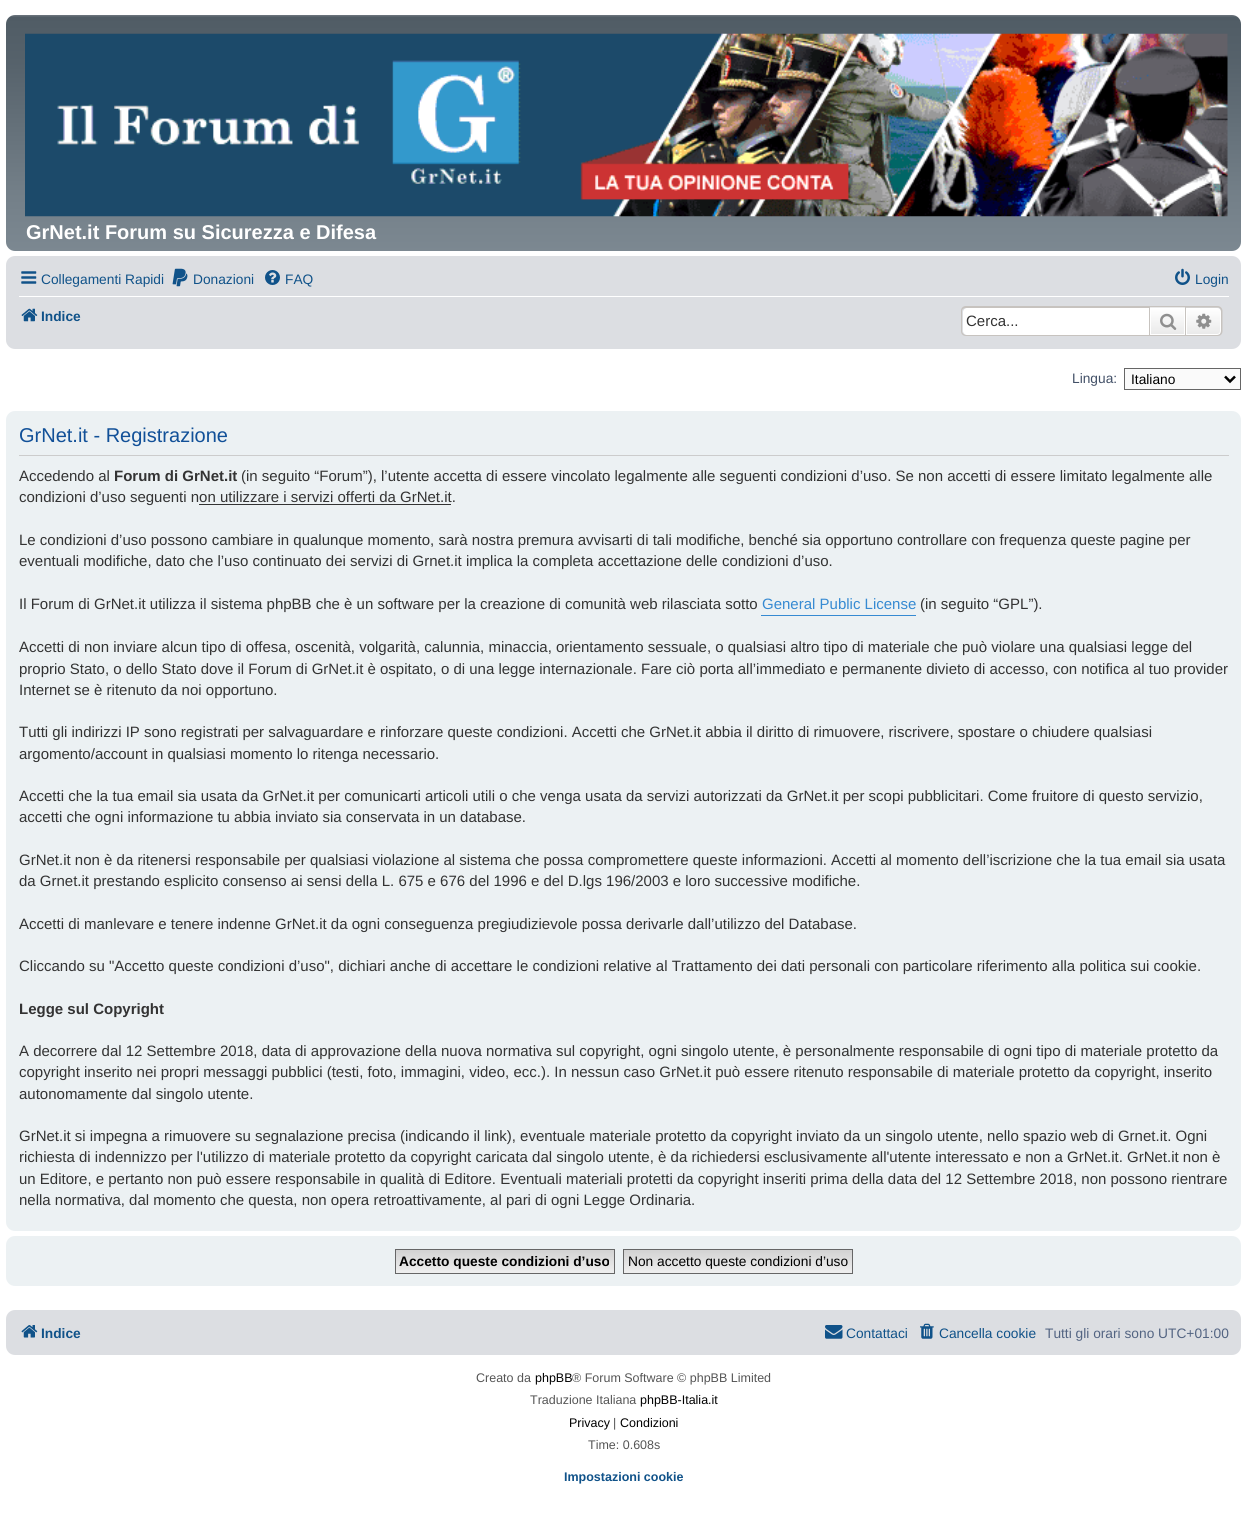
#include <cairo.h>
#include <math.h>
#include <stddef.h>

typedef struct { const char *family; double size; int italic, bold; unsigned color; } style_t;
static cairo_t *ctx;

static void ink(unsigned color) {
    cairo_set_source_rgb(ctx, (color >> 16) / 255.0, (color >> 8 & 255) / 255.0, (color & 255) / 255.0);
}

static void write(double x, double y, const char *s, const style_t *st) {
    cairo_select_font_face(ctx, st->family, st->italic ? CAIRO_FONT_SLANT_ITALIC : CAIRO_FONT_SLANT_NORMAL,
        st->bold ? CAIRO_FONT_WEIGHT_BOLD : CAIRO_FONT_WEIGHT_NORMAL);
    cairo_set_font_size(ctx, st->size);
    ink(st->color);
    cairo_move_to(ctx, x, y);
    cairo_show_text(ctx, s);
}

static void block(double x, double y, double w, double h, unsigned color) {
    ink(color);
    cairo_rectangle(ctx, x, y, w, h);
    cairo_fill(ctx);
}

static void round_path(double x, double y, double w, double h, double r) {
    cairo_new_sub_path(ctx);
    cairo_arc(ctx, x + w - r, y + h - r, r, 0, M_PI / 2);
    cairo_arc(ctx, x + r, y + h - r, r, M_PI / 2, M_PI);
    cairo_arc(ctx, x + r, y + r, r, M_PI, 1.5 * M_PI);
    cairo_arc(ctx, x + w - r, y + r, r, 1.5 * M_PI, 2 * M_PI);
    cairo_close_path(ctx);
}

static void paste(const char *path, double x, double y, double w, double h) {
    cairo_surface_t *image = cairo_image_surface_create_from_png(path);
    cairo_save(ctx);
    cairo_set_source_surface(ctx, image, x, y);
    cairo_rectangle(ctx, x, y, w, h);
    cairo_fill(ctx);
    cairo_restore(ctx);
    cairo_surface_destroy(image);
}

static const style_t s1 = {"Liberation Sans", 20, 0, 1, 0xffffff};
static const style_t s2 = {"Liberation Sans", 13.75, 0, 0, 0x105289};
static const style_t s3 = {"Liberation Sans", 13.75, 0, 1, 0x105289};
static const style_t s4 = {"Liberation Sans", 15, 0, 0, 0x333333};
static const style_t s5 = {"Liberation Sans", 13.75, 0, 0, 0x425067};
static const style_t s6 = {"Liberation Sans", 13.75, 0, 0, 0x000000};
static const style_t s7 = {"Liberation Sans", 20, 0, 0, 0x115098};
static const style_t s8 = {"Liberation Sans", 15, 0, 1, 0x333333};
static const style_t s9 = {"Liberation Sans", 15, 0, 0, 0x368ad2};
static const style_t s10 = {"Liberation Sans", 13.75, 0, 1, 0x000000};
static const style_t s11 = {"Liberation Sans", 13.75, 0, 0, 0x536482};
static const style_t s12 = {"Liberation Sans", 12.5, 0, 0, 0x555555};
static const style_t s13 = {"Liberation Sans", 12.5, 0, 0, 0x000000};
static const style_t s14 = {"Liberation Sans", 12.5, 0, 1, 0x105289};

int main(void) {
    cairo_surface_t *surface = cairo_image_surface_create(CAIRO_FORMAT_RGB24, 1247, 1538);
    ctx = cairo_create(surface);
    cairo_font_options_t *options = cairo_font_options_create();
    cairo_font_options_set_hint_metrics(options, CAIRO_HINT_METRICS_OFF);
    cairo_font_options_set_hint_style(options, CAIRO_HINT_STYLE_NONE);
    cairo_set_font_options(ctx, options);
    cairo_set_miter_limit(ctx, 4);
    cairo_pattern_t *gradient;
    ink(0xffffff);
    cairo_paint(ctx);
    gradient = cairo_pattern_create_linear(624, 15, 624, 251);
    cairo_pattern_add_color_stop_rgba(gradient, 0, 0.431, 0.467, 0.498, 1);
    cairo_pattern_add_color_stop_rgba(gradient, 0.01, 0.314, 0.361, 0.396, 1);
    cairo_pattern_add_color_stop_rgba(gradient, 0.2, 0.337, 0.384, 0.42, 1);
    cairo_pattern_add_color_stop_rgba(gradient, 0.75, 0.451, 0.498, 0.533, 1);
    cairo_pattern_add_color_stop_rgba(gradient, 1, 0.486, 0.533, 0.569, 1);
    cairo_set_source(ctx, gradient);
    cairo_pattern_destroy(gradient);
    round_path(6, 15, 1235, 236, 9);
    cairo_fill(ctx);
    paste("pic1.png", 25, 33, 1203, 184);
    write(26, 239, "GrNet.it Forum su Sicurezza e Difesa", &s1);
    ink(0xdcdee2);
    round_path(6, 256, 1235, 93, 9);
    cairo_fill(ctx);
    paste("pic2.png", 21, 271, 16, 13);
    write(41, 284, "Collegamenti Rapidi", &s2);
    paste("pic3.png", 172, 268, 16, 19);
    write(193, 284, "Donazioni", &s2);
    paste("pic4.png", 265, 270, 15, 15);
    write(285, 284, "FAQ", &s2);
    paste("pic5.png", 1175, 268, 15, 17);
    write(1195, 284, "Login", &s2);
    block(19, 296, 1210, 1, 0xffffff);
    paste("pic6.png", 21, 308, 17, 14);
    write(41, 321, "Indice", &s3);
    ink(0xffffff);
    cairo_new_path(ctx);
    cairo_move_to(ctx, 967, 308);
    cairo_line_to(ctx, 1149, 308);
    cairo_line_to(ctx, 1149, 335);
    cairo_line_to(ctx, 967, 335);
    cairo_curve_to(ctx, 965, 335, 963, 333, 963, 331);
    cairo_line_to(ctx, 963, 312);
    cairo_curve_to(ctx, 963, 310, 965, 308, 967, 308);
    cairo_close_path(ctx);
    cairo_fill(ctx);
    ink(0xc7c3bf);
    cairo_set_fill_rule(ctx, CAIRO_FILL_RULE_EVEN_ODD);
    cairo_new_path(ctx);
    cairo_move_to(ctx, 966, 306);
    cairo_line_to(ctx, 1149, 306);
    cairo_line_to(ctx, 1149, 336);
    cairo_line_to(ctx, 966, 336);
    cairo_curve_to(ctx, 963, 336, 961, 334, 961, 331);
    cairo_line_to(ctx, 961, 311);
    cairo_curve_to(ctx, 961, 308, 963, 306, 966, 306);
    cairo_close_path(ctx);
    cairo_move_to(ctx, 966, 308);
    cairo_line_to(ctx, 1149, 308);
    cairo_line_to(ctx, 1149, 335);
    cairo_line_to(ctx, 966, 335);
    cairo_curve_to(ctx, 964, 335, 962, 333, 962, 331);
    cairo_line_to(ctx, 962, 311);
    cairo_curve_to(ctx, 962, 309, 964, 308, 966, 308);
    cairo_close_path(ctx);
    cairo_fill(ctx);
    write(966, 326, "Cerca...", &s4);
    block(1150, 307, 35, 1, 0xe9e9e9);
    gradient = cairo_pattern_create_linear(1168, 308, 1168, 335);
    cairo_pattern_add_color_stop_rgba(gradient, 0, 1, 1, 1, 1);
    cairo_pattern_add_color_stop_rgba(gradient, 1, 0.914, 0.914, 0.914, 1);
    cairo_set_source(ctx, gradient);
    cairo_pattern_destroy(gradient);
    cairo_rectangle(ctx, 1151, 309, 33, 25);
    cairo_fill(ctx);
    cairo_rectangle(ctx, 1150.5, 308.5, 34, 26);
    ink(0xffffff);
    cairo_set_line_width(ctx, 1);
    cairo_stroke(ctx);
    cairo_rectangle(ctx, 1149.5, 306.5, 36, 29);
    ink(0xc7c3bf);
    cairo_stroke(ctx);
    paste("pic7.png", 1160, 313, 17, 17);
    gradient = cairo_pattern_create_linear(1204, 308, 1204, 335);
    cairo_pattern_add_color_stop_rgba(gradient, 0, 1, 1, 1, 1);
    cairo_pattern_add_color_stop_rgba(gradient, 1, 0.914, 0.914, 0.914, 1);
    cairo_set_source(ctx, gradient);
    cairo_pattern_destroy(gradient);
    cairo_new_path(ctx);
    cairo_move_to(ctx, 1186.5, 308.5);
    cairo_line_to(ctx, 1217, 308.5);
    cairo_curve_to(ctx, 1219, 308.5, 1220.5, 310, 1220.5, 312);
    cairo_line_to(ctx, 1220.5, 331);
    cairo_curve_to(ctx, 1220.5, 333, 1219, 334.5, 1217, 334.5);
    cairo_line_to(ctx, 1186.5, 334.5);
    cairo_close_path(ctx);
    cairo_fill_preserve(ctx);
    ink(0xffffff);
    cairo_stroke(ctx);
    ink(0xc7c3bf);
    cairo_new_path(ctx);
    cairo_move_to(ctx, 1186, 306);
    cairo_line_to(ctx, 1217.5, 306);
    cairo_curve_to(ctx, 1220.5, 306, 1222.5, 308.5, 1222.5, 311);
    cairo_line_to(ctx, 1222.5, 331);
    cairo_curve_to(ctx, 1222.5, 334, 1220.5, 336, 1217.5, 336);
    cairo_line_to(ctx, 1186, 336);
    cairo_close_path(ctx);
    cairo_move_to(ctx, 1186, 307.5);
    cairo_line_to(ctx, 1217.5, 307.5);
    cairo_curve_to(ctx, 1219.5, 307.5, 1221, 309, 1221, 311);
    cairo_line_to(ctx, 1221, 331);
    cairo_curve_to(ctx, 1221, 333.5, 1219.5, 335, 1217.5, 335);
    cairo_line_to(ctx, 1186, 335);
    cairo_close_path(ctx);
    cairo_fill(ctx);
    paste("pic8.png", 1196, 313, 16, 16);
    write(1072, 383, "Lingua:", &s5);
    ink(0xfafafa);
    cairo_rectangle(ctx, 1124.5, 368.5, 116, 21);
    cairo_fill_preserve(ctx);
    ink(0x666666);
    cairo_stroke(ctx);
    cairo_new_path(ctx);
    cairo_move_to(ctx, 1225, 376.5);
    cairo_line_to(ctx, 1230, 381.5);
    cairo_line_to(ctx, 1235, 376.5);
    ink(0x000000);
    cairo_set_line_width(ctx, 2.5);
    cairo_stroke(ctx);
    write(1131, 384, "Italiano", &s6);
    ink(0xecf1f3);
    round_path(6, 411, 1235, 820, 9);
    cairo_fill(ctx);
    block(19, 455, 1210, 1, 0xcccccc);
    write(19, 442, "GrNet.it - Registrazione", &s7);
    write(19, 481, "Accedendo al", &s4);
    write(114, 481, "Forum di GrNet.it", &s8);
    write(241, 481, "(in seguito “Forum”), l’utente accetta di essere vincolato legalmente alle seguenti condizioni d’uso. Se non accetti di essere limitato legalmente alle", &s4);
    write(19, 502, "condizioni d’uso seguenti non utilizzare i servizi offerti da GrNet.it.", &s4);
    block(199, 504, 252, 1, 0x333333);
    write(19, 545, "Le condizioni d’uso possono cambiare in qualunque momento, sarà nostra premura avvisarti di tali modifiche, benché sia opportuno controllare con frequenza queste pagine per", &s4);
    write(19, 566, "eventuali modifiche, dato che l’uso continuato dei servizi di Grnet.it implica la completa accettazione delle condizioni d’uso.", &s4);
    write(19, 609, "Il Forum di GrNet.it utilizza il sistema phpBB che è un software per la creazione di comunità web rilasciata sotto", &s4);
    block(761, 615, 155, 1, 0x368ad2);
    write(762, 609, "General Public License", &s9);
    write(920, 609, "(in seguito “GPL”).", &s4);
    write(19, 652, "Accetti di non inviare alcun tipo di offesa, oscenità, volgarità, calunnia, minaccia, orientamento sessuale, o qualsiasi altro tipo di materiale che può violare una qualsiasi legge del", &s4);
    write(19, 674, "proprio Stato, o dello Stato dove il Forum di GrNet.it è ospitato, o di una legge internazionale. Fare ciò porta all’immediato e permanente divieto di accesso, con notifica al tuo provider", &s4);
    write(19, 695, "Internet se è ritenuto da noi opportuno.", &s4);
    write(19, 737, "Tutti gli indirizzi IP sono registrati per salvaguardare e rinforzare queste condizioni. Accetti che GrNet.it abbia il diritto di rimuovere, riscrivere, spostare o chiudere qualsiasi", &s4);
    write(19, 759, "argomento/account in qualsiasi momento lo ritenga necessario.", &s4);
    write(19, 801, "Accetti che la tua email sia usata da GrNet.it per comunicarti articoli utili o che venga usata da servizi autorizzati da GrNet.it per scopi pubblicitari. Come fruitore di questo servizio,", &s4);
    write(19, 822, "accetti che ogni informazione tu abbia inviato sia conservata in un database.", &s4);
    write(19, 865, "GrNet.it non è da ritenersi responsabile per qualsiasi violazione al sistema che possa compromettere queste informazioni. Accetti al momento dell’iscrizione che la tua email sia usata", &s4);
    write(19, 886, "da Grnet.it prestando esplicito consenso ai sensi della L. 675 e 676 del 1996 e del D.lgs 196/2003 e loro successive modifiche.", &s4);
    write(19, 929, "Accetti di manlevare e tenere indenne GrNet.it da ogni conseguenza pregiudizievole possa derivarle dall’utilizzo del Database.", &s4);
    write(19, 971, "Cliccando su \"Accetto queste condizioni d’uso\", dichiari anche di accettare le condizioni relative al Trattamento dei dati personali con particolare riferimento alla politica sui cookie.", &s4);
    write(19, 1014, "Legge sul Copyright", &s8);
    write(19, 1056, "A decorrere dal 12 Settembre 2018, data di approvazione della nuova normativa sul copyright, ogni singolo utente, è personalmente responsabile di ogni tipo di materiale protetto da", &s4);
    write(19, 1077, "copyright inserito nei propri messaggi pubblici (testi, foto, immagini, video, ecc.). In nessun caso GrNet.it può essere ritenuto responsabile di materiale protetto da copyright, inserito", &s4);
    write(19, 1099, "autonomamente dal singolo utente.", &s4);
    write(19, 1141, "GrNet.it si impegna a rimuovere su segnalazione precisa (indicando il link), eventuale materiale protetto da copyright inviato da un singolo utente, nello spazio web di Grnet.it. Ogni", &s4);
    write(19, 1162, "richiesta di indennizzo per l'utilizzo di materiale protetto da copyright caricata dal singolo utente, è da richiedersi esclusivamente all'utente interessato e non a GrNet.it. GrNet.it non è", &s4);
    write(19, 1184, "un Editore, e pertanto non può essere responsabile in qualità di Editore. Eventuali materiali protetti da copyright inseriti prima della data del 12 Settembre 2018, non possono rientrare", &s4);
    write(19, 1205, "nella normativa, dal momento che questa, non opera retroattivamente, al pari di ogni Legge Ordinaria.", &s4);
    ink(0xecf1f3);
    round_path(6, 1236, 1235, 50, 9);
    cairo_fill(ctx);
    gradient = cairo_pattern_create_linear(505, 1250, 505, 1273);
    cairo_pattern_add_color_stop_rgba(gradient, 0, 0.824, 0.824, 0.824, 1);
    cairo_pattern_add_color_stop_rgba(gradient, 1, 0.937, 0.937, 0.937, 1);
    cairo_set_source(ctx, gradient);
    cairo_pattern_destroy(gradient);
    cairo_rectangle(ctx, 396, 1250, 218, 23);
    cairo_fill(ctx);
    cairo_rectangle(ctx, 395.5, 1249.5, 219, 24);
    ink(0x666666);
    cairo_set_line_width(ctx, 1);
    cairo_stroke(ctx);
    write(399, 1266, "Accetto queste condizioni d’uso", &s10);
    gradient = cairo_pattern_create_linear(738, 1250, 738, 1273);
    cairo_pattern_add_color_stop_rgba(gradient, 0, 0.824, 0.824, 0.824, 1);
    cairo_pattern_add_color_stop_rgba(gradient, 1, 0.937, 0.937, 0.937, 1);
    cairo_set_source(ctx, gradient);
    cairo_pattern_destroy(gradient);
    cairo_rectangle(ctx, 624, 1250, 228, 23);
    cairo_fill(ctx);
    cairo_rectangle(ctx, 623.5, 1249.5, 229, 24);
    ink(0x666666);
    cairo_stroke(ctx);
    write(628, 1266, "Non accetto queste condizioni d’uso", &s6);
    ink(0xdcdee2);
    round_path(6, 1310, 1235, 45, 9);
    cairo_fill(ctx);
    paste("pic9.png", 21, 1325, 17, 13);
    write(41, 1338, "Indice", &s3);
    paste("pic10.png", 825, 1325, 18, 14);
    write(846, 1338, "Contattaci", &s2);
    paste("pic11.png", 920, 1323, 14, 16);
    write(939, 1338, "Cancella cookie", &s2);
    write(1045, 1338, "Tutti gli orari sono UTC+01:00", &s11);
    write(476, 1382, "Creato da", &s12);
    write(535, 1382, "phpBB", &s13);
    write(572, 1382, "® Forum Software © phpBB Limited", &s12);
    write(530, 1404, "Traduzione Italiana", &s12);
    write(640, 1404, "phpBB-Italia.it", &s13);
    write(569, 1427, "Privacy", &s13);
    write(613, 1427, "|", &s12);
    write(620, 1427, "Condizioni", &s13);
    write(588, 1449, "Time: 0.608s", &s12);
    write(564, 1481, "Impostazioni cookie", &s14);
    cairo_surface_write_to_png(surface, "screenshot.png");
    cairo_font_options_destroy(options);
    cairo_destroy(ctx);
    cairo_surface_destroy(surface);
    return 0;
}
